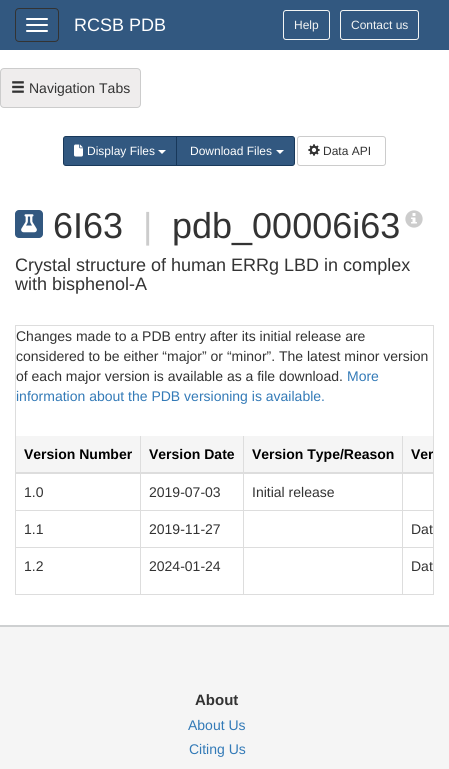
#include <cairo.h>
#include <math.h>
#include <stddef.h>

typedef struct { const char *family; double size; int italic, bold; unsigned color; } style_t;
static cairo_t *ctx;

static void ink(unsigned color) {
    cairo_set_source_rgb(ctx, (color >> 16) / 255.0, (color >> 8 & 255) / 255.0, (color & 255) / 255.0);
}

static void write(double x, double y, const char *s, const style_t *st) {
    cairo_select_font_face(ctx, st->family, st->italic ? CAIRO_FONT_SLANT_ITALIC : CAIRO_FONT_SLANT_NORMAL,
        st->bold ? CAIRO_FONT_WEIGHT_BOLD : CAIRO_FONT_WEIGHT_NORMAL);
    cairo_set_font_size(ctx, st->size);
    ink(st->color);
    cairo_move_to(ctx, x, y);
    cairo_show_text(ctx, s);
}

static void block(double x, double y, double w, double h, unsigned color) {
    ink(color);
    cairo_rectangle(ctx, x, y, w, h);
    cairo_fill(ctx);
}

static void round_path(double x, double y, double w, double h, double r) {
    cairo_new_sub_path(ctx);
    cairo_arc(ctx, x + w - r, y + h - r, r, 0, M_PI / 2);
    cairo_arc(ctx, x + r, y + h - r, r, M_PI / 2, M_PI);
    cairo_arc(ctx, x + r, y + r, r, M_PI, 1.5 * M_PI);
    cairo_arc(ctx, x + w - r, y + r, r, 1.5 * M_PI, 2 * M_PI);
    cairo_close_path(ctx);
}

static void paste(const char *path, double x, double y, double w, double h) {
    cairo_surface_t *image = cairo_image_surface_create_from_png(path);
    cairo_save(ctx);
    cairo_set_source_surface(ctx, image, x, y);
    cairo_rectangle(ctx, x, y, w, h);
    cairo_fill(ctx);
    cairo_restore(ctx);
    cairo_surface_destroy(image);
}

static const style_t s1 = {"Liberation Sans", 18, 0, 0, 0xffffff};
static const style_t s2 = {"Liberation Sans", 12, 0, 0, 0xf3f5f4};
static const style_t s3 = {"Liberation Sans", 14, 0, 0, 0x333333};
static const style_t s4 = {"Liberation Sans", 12, 0, 0, 0xffffff};
static const style_t s5 = {"Liberation Sans", 12, 0, 0, 0x333333};
static const style_t s6 = {"Liberation Sans", 36, 0, 0, 0x333333};
static const style_t s7 = {"Liberation Sans", 36, 0, 0, 0xcccccc};
static const style_t s8 = {"Liberation Sans", 18, 0, 0, 0x333333};
static const style_t s9 = {"Liberation Sans", 14, 0, 0, 0x337ab7};
static const style_t s10 = {"Liberation Sans", 14, 0, 1, 0x000000};
static const style_t s11 = {"Liberation Sans", 15, 0, 1, 0x333333};

int main(void) {
    cairo_surface_t *surface = cairo_image_surface_create(CAIRO_FORMAT_RGB24, 449, 769);
    ctx = cairo_create(surface);
    cairo_font_options_t *options = cairo_font_options_create();
    cairo_font_options_set_hint_metrics(options, CAIRO_HINT_METRICS_OFF);
    cairo_font_options_set_hint_style(options, CAIRO_HINT_STYLE_NONE);
    cairo_set_font_options(ctx, options);
    cairo_set_miter_limit(ctx, 4);
    ink(0xffffff);
    cairo_paint(ctx);
    block(0, 0, 449, 50, 0x325880);
    round_path(15.5, 8.5, 43, 33, 3.5);
    ink(0x333333);
    cairo_set_line_width(ctx, 1);
    cairo_stroke(ctx);
    ink(0xffffff);
    round_path(26, 18, 22, 2, 1);
    cairo_fill(ctx);
    round_path(26, 24, 22, 2, 1);
    cairo_fill(ctx);
    round_path(26, 30, 22, 2, 1);
    cairo_fill(ctx);
    write(74, 31, "RCSB PDB", &s1);
    round_path(283.5, 10.5, 46, 29, 2.5);
    ink(0xf3f5f4);
    cairo_stroke(ctx);
    write(294, 29, "Help", &s2);
    round_path(340.5, 10.5, 78, 29, 2.5);
    cairo_stroke(ctx);
    write(351, 29, "Contact us", &s2);
    ink(0xefeded);
    round_path(0.5, 68.5, 140, 39, 3.5);
    cairo_fill_preserve(ctx);
    ink(0xcccccc);
    cairo_stroke(ctx);
    paste("pic1.png", 12, 81, 12, 12);
    write(29, 93, "Navigation Tabs", &s3);
    ink(0x325880);
    cairo_new_path(ctx);
    cairo_move_to(ctx, 66, 136.5);
    cairo_line_to(ctx, 176.5, 136.5);
    cairo_line_to(ctx, 176.5, 165.5);
    cairo_line_to(ctx, 66, 165.5);
    cairo_curve_to(ctx, 64.5, 165.5, 63.5, 164.5, 63.5, 163);
    cairo_line_to(ctx, 63.5, 139);
    cairo_curve_to(ctx, 63.5, 137.5, 64.5, 136.5, 66, 136.5);
    cairo_close_path(ctx);
    cairo_fill_preserve(ctx);
    ink(0x18385a);
    cairo_stroke(ctx);
    paste("pic2.png", 74, 144, 9, 13);
    write(87, 155, "Display Files", &s4);
    cairo_new_path(ctx);
    cairo_move_to(ctx, 158, 150);
    cairo_line_to(ctx, 166, 150);
    cairo_line_to(ctx, 162, 154);
    cairo_close_path(ctx);
    cairo_fill(ctx);
    ink(0x325880);
    cairo_new_path(ctx);
    cairo_move_to(ctx, 176.5, 136.5);
    cairo_line_to(ctx, 292, 136.5);
    cairo_curve_to(ctx, 293.5, 136.5, 294.5, 137.5, 294.5, 139);
    cairo_line_to(ctx, 294.5, 163);
    cairo_curve_to(ctx, 294.5, 164.5, 293.5, 165.5, 292, 165.5);
    cairo_line_to(ctx, 176.5, 165.5);
    cairo_close_path(ctx);
    cairo_fill_preserve(ctx);
    ink(0x18385a);
    cairo_stroke(ctx);
    write(190, 155, "Download Files", &s4);
    cairo_new_path(ctx);
    cairo_move_to(ctx, 276, 150);
    cairo_line_to(ctx, 284, 150);
    cairo_line_to(ctx, 280, 154);
    cairo_close_path(ctx);
    cairo_fill(ctx);
    round_path(297.5, 136.5, 88, 29, 2.5);
    ink(0xcccccc);
    cairo_stroke(ctx);
    paste("pic3.png", 308, 144, 12, 12);
    write(323, 155, "Data API", &s5);
    ink(0x325880);
    round_path(15, 210, 28, 28, 4);
    cairo_fill(ctx);
    paste("pic4.png", 21, 214, 16, 19);
    write(53, 238, "6I63", &s6);
    write(143, 238, "|", &s7);
    write(172, 238, "pdb_00006i63", &s6);
    paste("pic5.png", 405, 210, 18, 18);
    write(15, 271, "Crystal structure of human ERRg LBD in complex", &s8);
    write(15, 290, "with bisphenol-A", &s8);
    cairo_rectangle(ctx, 15.5, 325.5, 418, 269);
    ink(0xdddddd);
    cairo_stroke(ctx);
    write(16, 341, "Changes made to a PDB entry after its initial release are", &s3);
    write(16, 361, "considered to be either “major” or “minor”. The latest minor version", &s3);
    write(16, 381, "of each major version is available as a file download.", &s3);
    write(347, 381, "More", &s9);
    write(16, 401, "information about the PDB versioning is available.", &s9);
    block(16, 436, 417, 36, 0xf5f5f5);
    write(24, 459, "Version Number", &s10);
    write(149, 459, "Version Date", &s10);
    write(252, 459, "Version Type/Reason", &s10);
    block(402, 510, 31, 1, 0xdddddd);
    block(402, 547, 31, 1, 0xdddddd);
    block(402, 547, 1, 47, 0xdddddd);
    block(243, 547, 160, 1, 0xdddddd);
    block(402, 510, 1, 38, 0xdddddd);
    block(243, 510, 160, 1, 0xdddddd);
    block(243, 547, 1, 47, 0xdddddd);
    block(140, 547, 104, 1, 0xdddddd);
    block(243, 510, 1, 38, 0xdddddd);
    block(140, 510, 104, 1, 0xdddddd);
    block(140, 547, 1, 47, 0xdddddd);
    block(16, 547, 125, 1, 0xdddddd);
    block(140, 510, 1, 38, 0xdddddd);
    block(16, 510, 125, 1, 0xdddddd);
    block(140, 436, 1, 75, 0xdddddd);
    block(243, 436, 1, 75, 0xdddddd);
    block(402, 436, 1, 75, 0xdddddd);
    block(16, 472, 417, 2, 0xdddddd);
    cairo_save(ctx);
    cairo_rectangle(ctx, 16, 326, 417, 268);
    cairo_clip(ctx);
    write(411, 459, "Ver", &s10);
    cairo_restore(ctx);
    write(24, 497, "1.0", &s3);
    write(149, 497, "2019-07-03", &s3);
    write(252, 497, "Initial release", &s3);
    write(24, 534, "1.1", &s3);
    write(149, 534, "2019-11-27", &s3);
    write(411, 534, "Dat", &s3);
    write(24, 571, "1.2", &s3);
    write(149, 571, "2024-01-24", &s3);
    write(411, 571, "Dat", &s3);
    block(0, 627, 449, 142, 0xf5f5f5);
    block(0, 625, 449, 2, 0xced0d1);
    write(195, 705, "About", &s11);
    write(188, 730, "About Us", &s9);
    write(189, 754, "Citing Us", &s9);
    cairo_surface_write_to_png(surface, "screenshot.png");
    cairo_font_options_destroy(options);
    cairo_destroy(ctx);
    cairo_surface_destroy(surface);
    return 0;
}
